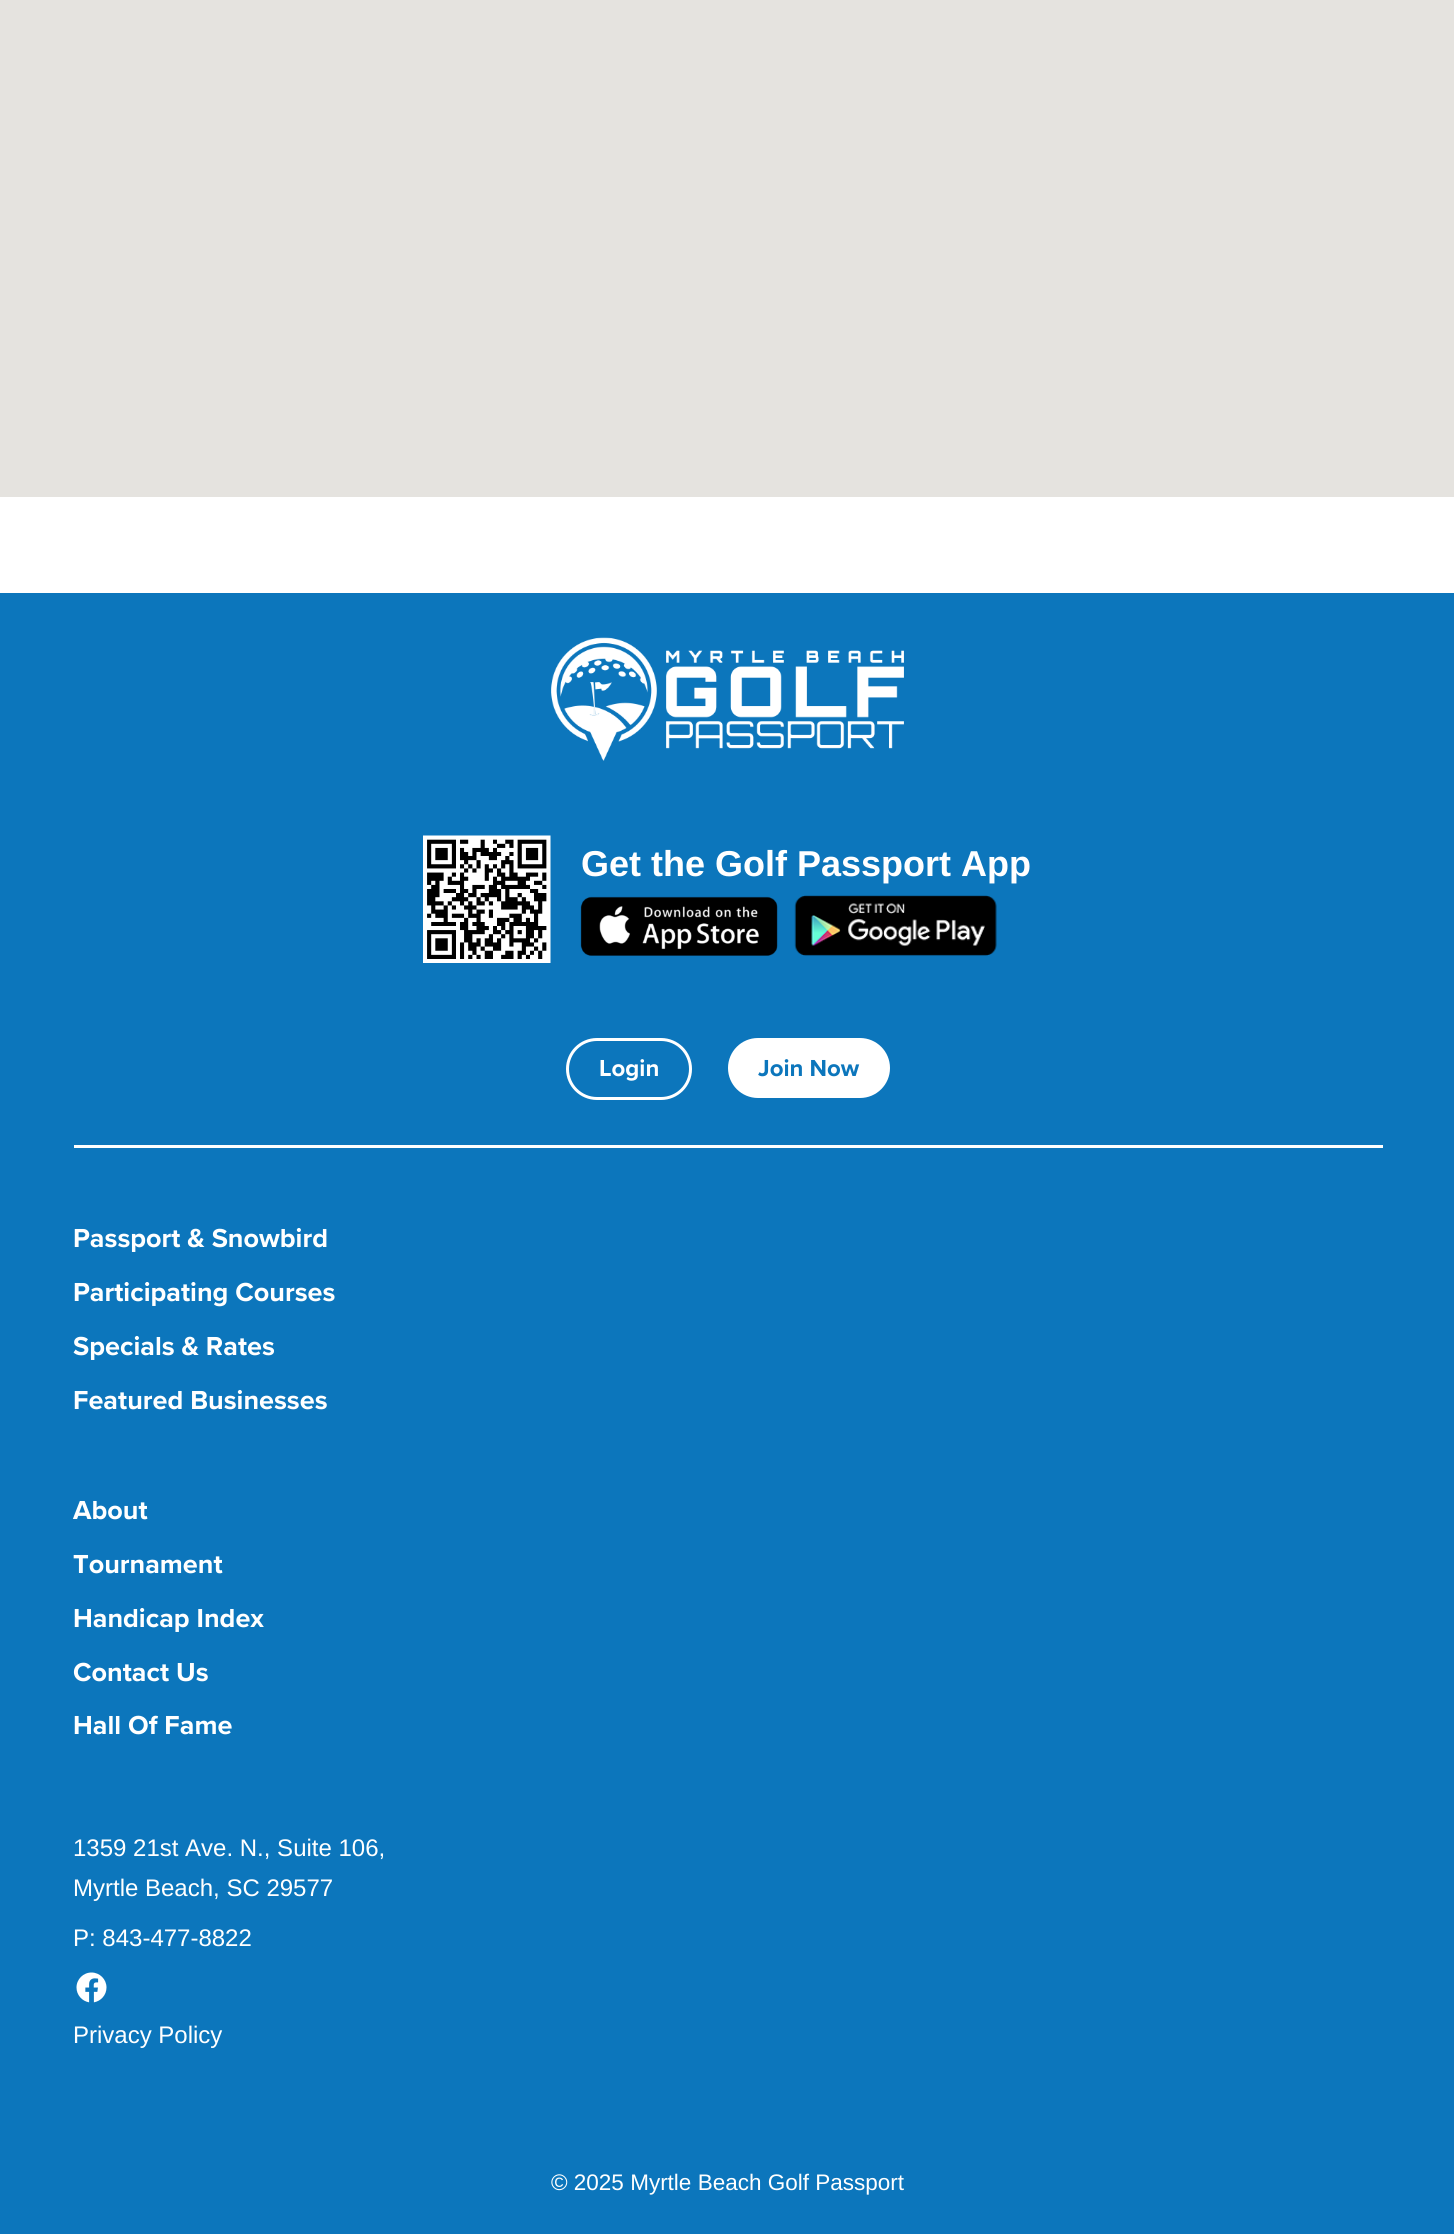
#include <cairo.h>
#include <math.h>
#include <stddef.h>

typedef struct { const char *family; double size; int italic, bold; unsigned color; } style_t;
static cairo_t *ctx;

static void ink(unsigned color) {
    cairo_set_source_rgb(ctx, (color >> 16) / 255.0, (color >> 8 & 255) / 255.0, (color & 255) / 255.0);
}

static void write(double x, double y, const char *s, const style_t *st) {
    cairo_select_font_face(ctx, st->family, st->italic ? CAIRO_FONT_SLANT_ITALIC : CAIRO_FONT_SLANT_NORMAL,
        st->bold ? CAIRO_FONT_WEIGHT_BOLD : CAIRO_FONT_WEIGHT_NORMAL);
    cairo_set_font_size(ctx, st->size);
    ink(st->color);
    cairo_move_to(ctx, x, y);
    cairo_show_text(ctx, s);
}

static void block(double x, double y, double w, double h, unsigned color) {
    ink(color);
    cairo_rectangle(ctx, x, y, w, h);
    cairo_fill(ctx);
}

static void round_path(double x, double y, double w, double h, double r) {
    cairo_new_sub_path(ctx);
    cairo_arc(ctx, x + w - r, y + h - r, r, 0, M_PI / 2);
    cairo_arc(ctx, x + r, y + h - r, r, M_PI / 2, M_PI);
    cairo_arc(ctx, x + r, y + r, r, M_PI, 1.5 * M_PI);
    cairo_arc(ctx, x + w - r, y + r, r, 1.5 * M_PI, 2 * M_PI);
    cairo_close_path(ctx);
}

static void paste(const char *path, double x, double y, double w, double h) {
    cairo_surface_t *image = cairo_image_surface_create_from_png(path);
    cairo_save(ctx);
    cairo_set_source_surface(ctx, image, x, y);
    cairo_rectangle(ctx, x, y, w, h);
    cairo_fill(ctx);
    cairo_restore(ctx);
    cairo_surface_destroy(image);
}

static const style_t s1 = {"Liberation Sans", 36, 0, 1, 0xffffff};
static const style_t s2 = {"Proxima Nova", 24, 0, 1, 0xffffff};
static const style_t s3 = {"Proxima Nova", 24, 0, 1, 0x0c76bc};
static const style_t s4 = {"Proxima Nova", 27, 0, 1, 0xffffff};
static const style_t s5 = {"Liberation Sans", 24, 0, 0, 0xffffff};
static const style_t s6 = {"Liberation Sans", 22.5, 0, 0, 0xffffff};

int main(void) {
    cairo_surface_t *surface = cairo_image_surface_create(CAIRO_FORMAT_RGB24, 1454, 2234);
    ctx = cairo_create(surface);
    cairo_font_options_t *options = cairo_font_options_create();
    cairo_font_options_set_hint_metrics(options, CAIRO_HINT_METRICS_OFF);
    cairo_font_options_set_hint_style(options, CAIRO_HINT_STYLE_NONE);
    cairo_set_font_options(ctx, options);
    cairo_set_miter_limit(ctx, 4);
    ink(0xffffff);
    cairo_paint(ctx);
    block(0, 0, 1454, 497, 0xe5e3df);
    block(0, 593, 1454, 1641, 0x0c76bc);
    block(74, 1145, 1309, 3, 0xffffff);
    paste("pic1.png", 551, 637, 353, 124);
    paste("pic2.png", 423, 835, 128, 128);
    write(581, 876, "Get the Golf Passport App", &s1);
    paste("pic3.png", 580, 896, 198, 60);
    paste("pic4.png", 794, 895, 203, 61);
    round_path(567.5, 1039.5, 123, 59, 29.5);
    cairo_set_line_width(ctx, 3);
    cairo_stroke(ctx);
    write(599, 1076, "Login", &s2);
    round_path(728, 1038, 162, 60, 30);
    cairo_fill(ctx);
    write(758, 1076, "Join Now", &s3);
    write(73, 1247, "Passport & Snowbird", &s4);
    write(73, 1301, "Participating Courses", &s4);
    write(73, 1355, "Specials & Rates", &s4);
    write(73, 1409, "Featured Businesses", &s4);
    write(73, 1519, "About", &s4);
    write(73, 1573, "Tournament", &s4);
    write(73, 1627, "Handicap Index", &s4);
    write(73, 1681, "Contact Us", &s4);
    write(73, 1734, "Hall Of Fame", &s4);
    write(73, 1856, "1359 21st Ave. N., Suite 106,", &s5);
    write(73, 1896, "Myrtle Beach, SC 29577", &s5);
    write(73, 1946, "P: 843-477-8822", &s5);
    paste("pic5.png", 76, 1972, 31, 31);
    write(73, 2043, "Privacy Policy", &s5);
    write(551, 2190, "© 2025 Myrtle Beach Golf Passport", &s6);
    cairo_surface_write_to_png(surface, "screenshot.png");
    cairo_font_options_destroy(options);
    cairo_destroy(ctx);
    cairo_surface_destroy(surface);
    return 0;
}
